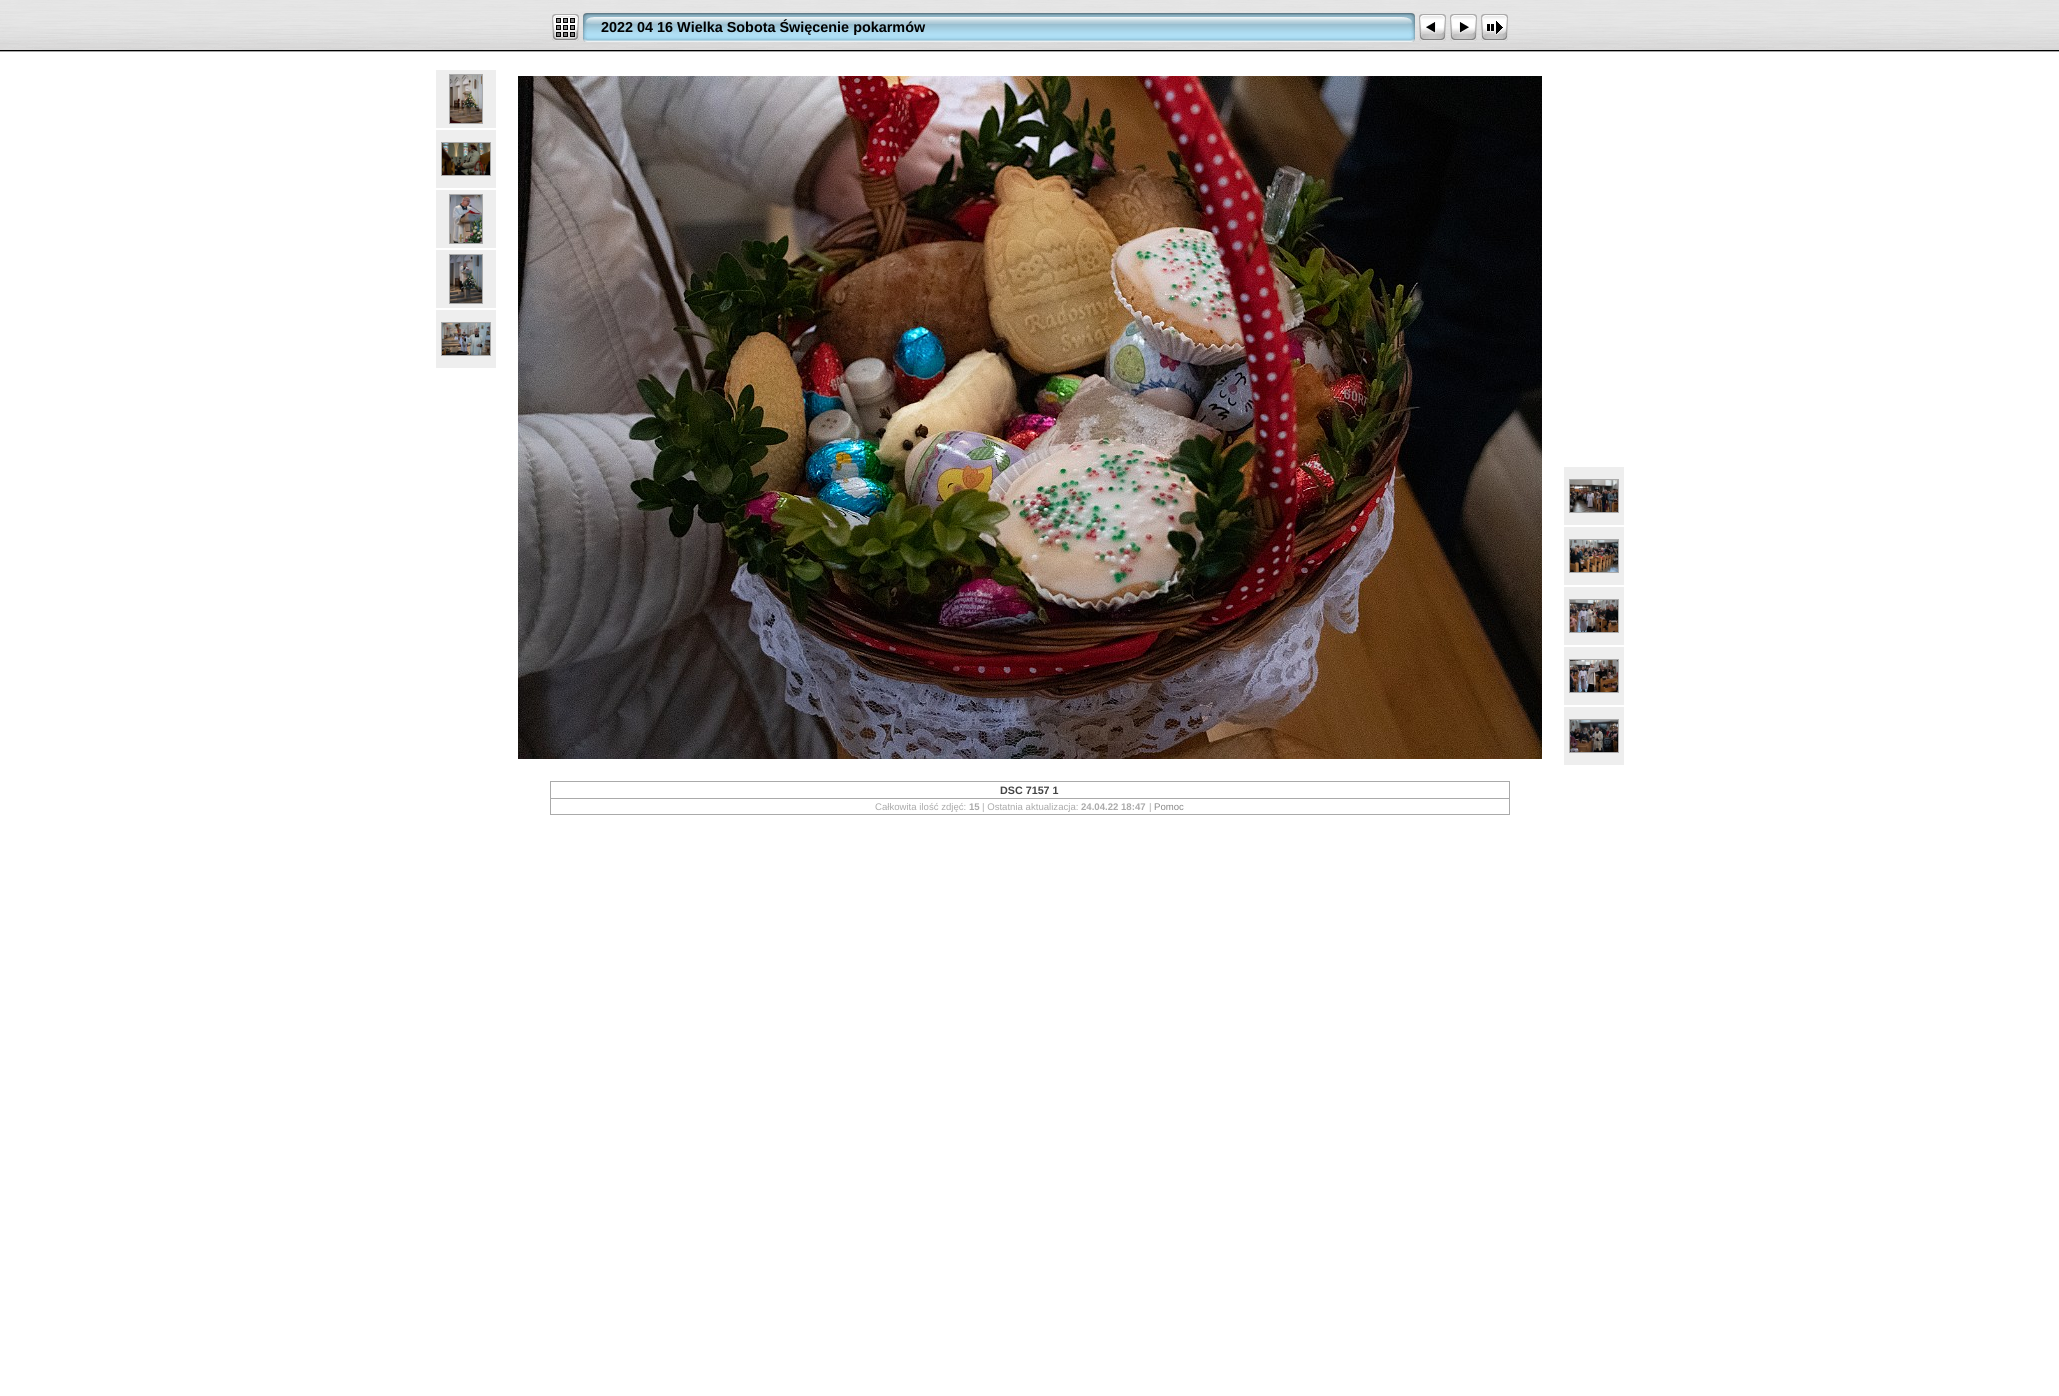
#include <cairo.h>
#include <math.h>
#include <stddef.h>

typedef struct { const char *family; double size; int italic, bold; unsigned color; } style_t;
static cairo_t *ctx;

static void ink(unsigned color) {
    cairo_set_source_rgb(ctx, (color >> 16) / 255.0, (color >> 8 & 255) / 255.0, (color & 255) / 255.0);
}

static void write(double x, double y, const char *s, const style_t *st) {
    cairo_select_font_face(ctx, st->family, st->italic ? CAIRO_FONT_SLANT_ITALIC : CAIRO_FONT_SLANT_NORMAL,
        st->bold ? CAIRO_FONT_WEIGHT_BOLD : CAIRO_FONT_WEIGHT_NORMAL);
    cairo_set_font_size(ctx, st->size);
    ink(st->color);
    cairo_move_to(ctx, x, y);
    cairo_show_text(ctx, s);
}

static void block(double x, double y, double w, double h, unsigned color) {
    ink(color);
    cairo_rectangle(ctx, x, y, w, h);
    cairo_fill(ctx);
}

static void paste(const char *path, double x, double y, double w, double h) {
    cairo_surface_t *image = cairo_image_surface_create_from_png(path);
    cairo_save(ctx);
    cairo_set_source_surface(ctx, image, x, y);
    cairo_rectangle(ctx, x, y, w, h);
    cairo_fill(ctx);
    cairo_restore(ctx);
    cairo_surface_destroy(image);
}

static const style_t s1 = {"Liberation Sans", 14.4, 0, 1, 0x000000};
static const style_t s2 = {"Liberation Sans", 10.75, 0, 1, 0x444444};
static const style_t s3 = {"Liberation Sans", 9.6, 0, 0, 0xaaaaaa};
static const style_t s4 = {"Liberation Sans", 9.6, 0, 1, 0xaaaaaa};
static const style_t s5 = {"Liberation Sans", 9.6, 0, 0, 0x888888};

int main(void) {
    cairo_surface_t *surface = cairo_image_surface_create(CAIRO_FORMAT_RGB24, 2059, 1396);
    ctx = cairo_create(surface);
    cairo_font_options_t *options = cairo_font_options_create();
    cairo_font_options_set_hint_metrics(options, CAIRO_HINT_METRICS_OFF);
    cairo_font_options_set_hint_style(options, CAIRO_HINT_STYLE_NONE);
    cairo_set_font_options(ctx, options);
    cairo_set_miter_limit(ctx, 4);
    ink(0xffffff);
    cairo_paint(ctx);
    paste("pic1.png", 0, 0, 2059, 52);
    paste("pic2.png", 552, 14, 27, 27);
    paste("pic3.png", 583, 13, 18, 29);
    paste("pic4.png", 601, 13, 796, 29);
    write(601, 32, "2022 04 16 Wielka Sobota Święcenie pokarmów", &s1);
    paste("pic5.png", 1397, 13, 18, 29);
    paste("pic6.png", 1419, 14, 27, 27);
    paste("pic7.png", 1450, 14, 27, 27);
    paste("pic8.png", 1481, 14, 27, 27);
    block(436, 70, 60, 58, 0xeeeeee);
    cairo_rectangle(ctx, 449.5, 74.5, 33, 49);
    ink(0xaaaaaa);
    cairo_set_line_width(ctx, 1);
    cairo_stroke(ctx);
    paste("pic9.png", 450, 75, 32, 48);
    block(436, 130, 60, 58, 0xeeeeee);
    cairo_rectangle(ctx, 441.5, 142.5, 49, 33);
    ink(0xaaaaaa);
    cairo_stroke(ctx);
    paste("pic10.png", 442, 143, 48, 32);
    block(436, 190, 60, 58, 0xeeeeee);
    cairo_rectangle(ctx, 449.5, 194.5, 33, 49);
    ink(0xaaaaaa);
    cairo_stroke(ctx);
    paste("pic11.png", 450, 195, 32, 48);
    block(436, 250, 60, 58, 0xeeeeee);
    cairo_rectangle(ctx, 449.5, 254.5, 33, 49);
    ink(0xaaaaaa);
    cairo_stroke(ctx);
    paste("pic12.png", 450, 255, 32, 48);
    block(436, 310, 60, 58, 0xeeeeee);
    cairo_rectangle(ctx, 441.5, 322.5, 49, 33);
    ink(0xaaaaaa);
    cairo_stroke(ctx);
    paste("pic13.png", 442, 323, 48, 32);
    paste("pic14.png", 518, 76, 1024, 683);
    block(1564, 467, 60, 58, 0xeeeeee);
    cairo_rectangle(ctx, 1569.5, 479.5, 49, 33);
    ink(0xaaaaaa);
    cairo_stroke(ctx);
    paste("pic15.png", 1570, 480, 48, 32);
    block(1564, 527, 60, 58, 0xeeeeee);
    cairo_rectangle(ctx, 1569.5, 539.5, 49, 33);
    ink(0xaaaaaa);
    cairo_stroke(ctx);
    paste("pic16.png", 1570, 540, 48, 32);
    block(1564, 587, 60, 58, 0xeeeeee);
    cairo_rectangle(ctx, 1569.5, 599.5, 49, 33);
    ink(0xaaaaaa);
    cairo_stroke(ctx);
    paste("pic17.png", 1570, 600, 48, 32);
    block(1564, 647, 60, 58, 0xeeeeee);
    cairo_rectangle(ctx, 1569.5, 659.5, 49, 33);
    ink(0xaaaaaa);
    cairo_stroke(ctx);
    paste("pic18.png", 1570, 660, 48, 32);
    block(1564, 707, 60, 58, 0xeeeeee);
    cairo_rectangle(ctx, 1569.5, 719.5, 49, 33);
    ink(0xaaaaaa);
    cairo_stroke(ctx);
    paste("pic19.png", 1570, 720, 48, 32);
    block(550, 781, 960, 1, 0xaaaaaa);
    block(1509, 781, 1, 34, 0xaaaaaa);
    block(550, 814, 960, 1, 0xaaaaaa);
    block(550, 781, 1, 34, 0xaaaaaa);
    write(1000, 794, "DSC 7157 1", &s2);
    block(550, 798, 960, 1, 0xaaaaaa);
    write(875, 810, "Całkowita ilość zdjęć:", &s3);
    write(969, 810, "15", &s4);
    write(982, 810, "| Ostatnia aktualizacja:", &s3);
    write(1081, 810, "24.04.22 18:47", &s4);
    write(1149, 810, "|", &s3);
    write(1154, 810, "Pomoc", &s5);
    cairo_surface_write_to_png(surface, "screenshot.png");
    cairo_font_options_destroy(options);
    cairo_destroy(ctx);
    cairo_surface_destroy(surface);
    return 0;
}
